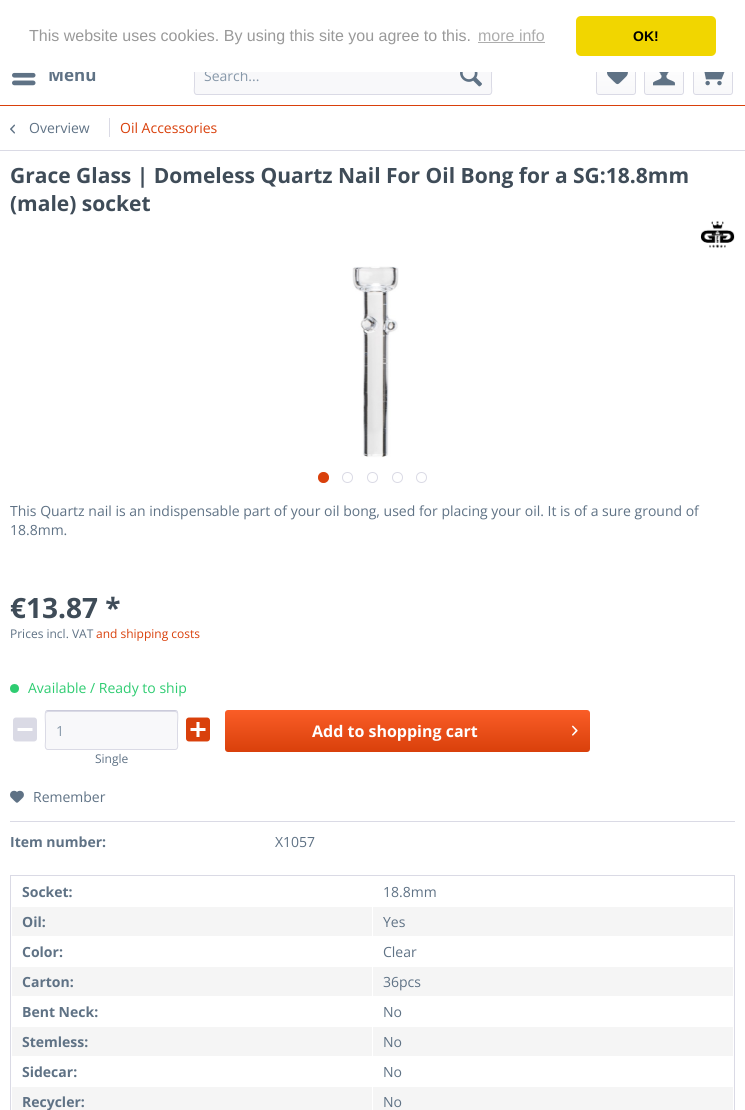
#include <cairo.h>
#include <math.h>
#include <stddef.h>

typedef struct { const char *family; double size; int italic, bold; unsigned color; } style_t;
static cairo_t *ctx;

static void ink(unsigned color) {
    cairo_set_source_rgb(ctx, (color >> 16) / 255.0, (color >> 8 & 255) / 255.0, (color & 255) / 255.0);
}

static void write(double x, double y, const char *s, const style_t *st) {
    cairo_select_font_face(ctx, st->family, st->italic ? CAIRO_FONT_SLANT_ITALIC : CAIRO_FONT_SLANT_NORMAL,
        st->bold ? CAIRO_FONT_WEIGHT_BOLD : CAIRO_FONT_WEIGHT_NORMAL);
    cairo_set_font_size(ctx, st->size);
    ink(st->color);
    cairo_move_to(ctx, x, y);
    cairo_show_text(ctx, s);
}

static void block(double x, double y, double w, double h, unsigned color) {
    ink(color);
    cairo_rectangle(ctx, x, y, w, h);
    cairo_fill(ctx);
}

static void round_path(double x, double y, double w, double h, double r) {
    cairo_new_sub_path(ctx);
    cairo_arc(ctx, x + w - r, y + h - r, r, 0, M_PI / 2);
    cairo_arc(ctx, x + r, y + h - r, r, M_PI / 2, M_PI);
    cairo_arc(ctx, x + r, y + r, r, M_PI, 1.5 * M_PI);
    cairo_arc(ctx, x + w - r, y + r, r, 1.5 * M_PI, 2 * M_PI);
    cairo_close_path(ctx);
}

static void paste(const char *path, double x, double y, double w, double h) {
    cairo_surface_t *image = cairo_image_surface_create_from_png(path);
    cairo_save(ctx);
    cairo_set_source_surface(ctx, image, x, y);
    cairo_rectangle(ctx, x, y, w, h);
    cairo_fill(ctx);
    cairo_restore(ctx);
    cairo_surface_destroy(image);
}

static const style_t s1 = {"Open Sans", 17, 0, 1, 0x5f7285};
static const style_t s2 = {"Open Sans", 14, 0, 0, 0x8798a9};
static const style_t s3 = {"Liberation Sans", 16, 0, 0, 0x999999};
static const style_t s4 = {"Liberation Sans", 16, 0, 0, 0xadadad};
static const style_t s5 = {"Liberation Sans", 14, 0, 1, 0x000000};
static const style_t s6 = {"Open Sans", 14, 0, 0, 0x5f7285};
static const style_t s7 = {"Open Sans", 14, 0, 0, 0xd9400b};
static const style_t s8 = {"Open Sans", 21, 0, 1, 0x3f4c58};
static const style_t s9 = {"Open Sans", 28, 0, 1, 0x3f4c58};
static const style_t s10 = {"Open Sans", 12, 0, 0, 0x5f7285};
static const style_t s11 = {"Open Sans", 12, 0, 0, 0xd9400b};
static const style_t s12 = {"Open Sans", 14, 0, 0, 0x2ecc71};
static const style_t s13 = {"Open Sans", 16, 0, 1, 0xffffff};
static const style_t s14 = {"Open Sans", 14, 0, 1, 0x5f7285};

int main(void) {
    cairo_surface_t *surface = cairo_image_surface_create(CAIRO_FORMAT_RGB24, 745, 1110);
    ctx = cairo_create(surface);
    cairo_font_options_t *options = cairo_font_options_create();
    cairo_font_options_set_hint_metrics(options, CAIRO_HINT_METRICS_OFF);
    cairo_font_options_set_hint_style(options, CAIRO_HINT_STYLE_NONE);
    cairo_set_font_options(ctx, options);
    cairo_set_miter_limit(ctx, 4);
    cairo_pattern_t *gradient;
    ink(0xffffff);
    cairo_paint(ctx);
    write(48, 81, "Menu", &s1);
    ink(0xf8f8fa);
    round_path(194, 55, 298, 40, 3);
    cairo_fill(ctx);
    cairo_new_path(ctx);
    cairo_move_to(ctx, 491, 56);
    cairo_curve_to(ctx, 492.5, 58, 491.5, 72, 491.5, 75);
    cairo_line_to(ctx, 491.5, 86.5);
    cairo_curve_to(ctx, 491.5, 88, 493, 94.5, 489, 94.5);
    cairo_line_to(ctx, 197, 94.5);
    cairo_curve_to(ctx, 193, 94.5, 194.5, 88, 194.5, 86.5);
    cairo_line_to(ctx, 194.5, 75);
    cairo_curve_to(ctx, 194.5, 72, 193.5, 58, 195, 56);
    ink(0xdadae5);
    cairo_set_line_width(ctx, 1);
    cairo_stroke(ctx);
    write(204, 81, "Search...", &s2);
    gradient = cairo_pattern_create_linear(616, 56, 616, 94);
    cairo_pattern_add_color_stop_rgba(gradient, 0, 1, 1, 1, 1);
    cairo_pattern_add_color_stop_rgba(gradient, 1, 0.973, 0.973, 0.98, 1);
    cairo_set_source(ctx, gradient);
    cairo_pattern_destroy(gradient);
    round_path(597, 56, 38, 38, 2);
    cairo_fill(ctx);
    round_path(596.5, 55.5, 39, 39, 2.5);
    ink(0xdadae5);
    cairo_stroke(ctx);
    gradient = cairo_pattern_create_linear(664, 56, 664, 94);
    cairo_pattern_add_color_stop_rgba(gradient, 0, 1, 1, 1, 1);
    cairo_pattern_add_color_stop_rgba(gradient, 1, 0.973, 0.973, 0.98, 1);
    cairo_set_source(ctx, gradient);
    cairo_pattern_destroy(gradient);
    round_path(645, 56, 38, 38, 2);
    cairo_fill(ctx);
    round_path(644.5, 55.5, 39, 39, 2.5);
    ink(0xdadae5);
    cairo_stroke(ctx);
    gradient = cairo_pattern_create_linear(713, 56, 713, 94);
    cairo_pattern_add_color_stop_rgba(gradient, 0, 1, 1, 1, 1);
    cairo_pattern_add_color_stop_rgba(gradient, 1, 0.973, 0.973, 0.98, 1);
    cairo_set_source(ctx, gradient);
    cairo_pattern_destroy(gradient);
    round_path(694, 56, 38, 38, 2);
    cairo_fill(ctx);
    round_path(693.5, 55.5, 39, 39, 2.5);
    ink(0xdadae5);
    cairo_stroke(ctx);
    block(49, 55, 684, 17, 0xffffff);
    write(29, 41, "This website uses cookies. By using this site you agree to this.", &s3);
    write(478, 41, "more info", &s4);
    block(478, 42, 67, 1, 0xadadad);
    ink(0xf1d600);
    round_path(576, 16, 140, 40, 5);
    cairo_fill(ctx);
    write(633, 41, "OK!", &s5);
    block(0, 105, 745, 1, 0xd9400b);
    paste("pic1.png", 12, 72, 24, 14);
    paste("pic2.png", 460, 72, 22, 15);
    paste("pic3.png", 607, 72, 21, 13);
    paste("pic4.png", 653, 72, 22, 14);
    paste("pic5.png", 704, 72, 21, 14);
    block(0, 150, 745, 1, 0xdadae5);
    paste("pic6.png", 10, 124, 5, 10);
    write(29, 133, "Overview", &s6);
    block(109, 118, 1, 19, 0xdadae5);
    write(120, 133, "Oil Accessories", &s7);
    write(10, 183, "Grace Glass | Domeless Quartz Nail For Oil Bong for a SG:18.8mm", &s8);
    write(10, 211, "(male) socket", &s8);
    paste("pic7.png", 700, 221, 35, 27);
    paste("pic8.png", 352, 266, 47, 192);
    ink(0xd9400b);
    cairo_arc(ctx, 323.5, 477.5, 5, 0, 2 * M_PI);
    cairo_fill_preserve(ctx);
    cairo_stroke(ctx);
    cairo_arc(ctx, 347.5, 477.5, 5, 0, 2 * M_PI);
    ink(0xdadae5);
    cairo_stroke(ctx);
    cairo_arc(ctx, 372.5, 477.5, 5, 0, 2 * M_PI);
    cairo_stroke(ctx);
    cairo_arc(ctx, 397.5, 477.5, 5, 0, 2 * M_PI);
    cairo_stroke(ctx);
    cairo_arc(ctx, 421.5, 477.5, 5, 0, 2 * M_PI);
    cairo_stroke(ctx);
    write(10, 516, "This Quartz nail is an indispensable part of your oil bong, used for placing your oil. It is of a sure ground of", &s6);
    write(10, 535, "18.8mm.", &s6);
    write(10, 618, "€13.87 *", &s9);
    write(10, 638, "Prices incl. VAT", &s10);
    write(96, 638, "and shipping costs", &s11);
    ink(0x2ecc71);
    cairo_new_path(ctx);
    cairo_arc(ctx, 14.5, 688.5, 4.5, 0, 2 * M_PI);
    cairo_fill(ctx);
    write(28, 693, "Available / Ready to ship", &s12);
    paste("pic9.png", 13, 717, 24, 25);
    ink(0xf8f8fa);
    round_path(45, 710, 133, 40, 3);
    cairo_fill(ctx);
    ink(0xdadae5);
    cairo_new_path(ctx);
    cairo_move_to(ctx, 48, 712);
    cairo_line_to(ctx, 175, 712);
    cairo_curve_to(ctx, 176, 712, 177, 713, 177, 714);
    cairo_curve_to(ctx, 177, 713, 177, 711, 175, 711);
    cairo_line_to(ctx, 48, 711);
    cairo_curve_to(ctx, 46, 711, 46, 713, 46, 714);
    cairo_curve_to(ctx, 46, 713, 47, 712, 48, 712);
    cairo_close_path(ctx);
    cairo_fill(ctx);
    cairo_new_path(ctx);
    cairo_move_to(ctx, 46, 711);
    cairo_line_to(ctx, 48, 710.5);
    cairo_line_to(ctx, 154, 710.5);
    cairo_line_to(ctx, 175, 710.5);
    cairo_line_to(ctx, 177, 711);
    ink(0xcbcbdb);
    cairo_stroke(ctx);
    cairo_new_path(ctx);
    cairo_move_to(ctx, 177, 711);
    cairo_curve_to(ctx, 178.5, 713, 177.5, 722, 177.5, 724.5);
    cairo_line_to(ctx, 177.5, 741.5);
    cairo_curve_to(ctx, 177.5, 743, 179, 749.5, 175, 749.5);
    cairo_line_to(ctx, 48, 749.5);
    cairo_curve_to(ctx, 44, 749.5, 45.5, 743, 45.5, 741.5);
    cairo_line_to(ctx, 45.5, 724.5);
    cairo_curve_to(ctx, 45.5, 722, 44.5, 713, 46, 711);
    ink(0xdadae5);
    cairo_stroke(ctx);
    write(56, 736, "1", &s2);
    paste("pic10.png", 186, 717, 24, 25);
    write(95, 763, "Single", &s10);
    gradient = cairo_pattern_create_linear(408, 710, 408, 752);
    cairo_pattern_add_color_stop_rgba(gradient, 0, 0.98, 0.365, 0.153, 1);
    cairo_pattern_add_color_stop_rgba(gradient, 1, 0.851, 0.251, 0.043, 1);
    cairo_set_source(ctx, gradient);
    cairo_pattern_destroy(gradient);
    round_path(225, 710, 365, 42, 3);
    cairo_fill(ctx);
    write(312, 737, "Add to shopping cart", &s13);
    paste("pic11.png", 572, 725, 6, 11);
    block(10, 821, 725, 1, 0xdadae5);
    paste("pic12.png", 10, 790, 14, 13);
    write(33, 802, "Remember", &s6);
    write(10, 847, "Item number:", &s14);
    write(275, 847, "X1057", &s6);
    cairo_rectangle(ctx, 10.5, 875.5, 724, 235);
    ink(0xdadae5);
    cairo_stroke(ctx);
    write(22, 897, "Socket:", &s14);
    write(383, 897, "18.8mm", &s6);
    block(12, 907, 360, 29, 0xf5f5f5);
    write(22, 927, "Oil:", &s14);
    block(373, 907, 360, 29, 0xf5f5f5);
    write(383, 927, "Yes", &s6);
    write(22, 957, "Color:", &s14);
    write(383, 957, "Clear", &s6);
    block(12, 967, 360, 29, 0xf5f5f5);
    write(22, 987, "Carton:", &s14);
    block(373, 967, 360, 29, 0xf5f5f5);
    write(383, 987, "36pcs", &s6);
    write(22, 1017, "Bent Neck:", &s14);
    write(383, 1017, "No", &s6);
    block(12, 1027, 360, 29, 0xf5f5f5);
    write(22, 1047, "Stemless:", &s14);
    block(373, 1027, 360, 29, 0xf5f5f5);
    write(383, 1047, "No", &s6);
    write(22, 1077, "Sidecar:", &s14);
    write(383, 1077, "No", &s6);
    block(12, 1087, 360, 23, 0xf5f5f5);
    write(22, 1107, "Recycler:", &s14);
    block(373, 1087, 360, 23, 0xf5f5f5);
    write(383, 1107, "No", &s6);
    cairo_surface_write_to_png(surface, "screenshot.png");
    cairo_font_options_destroy(options);
    cairo_destroy(ctx);
    cairo_surface_destroy(surface);
    return 0;
}
